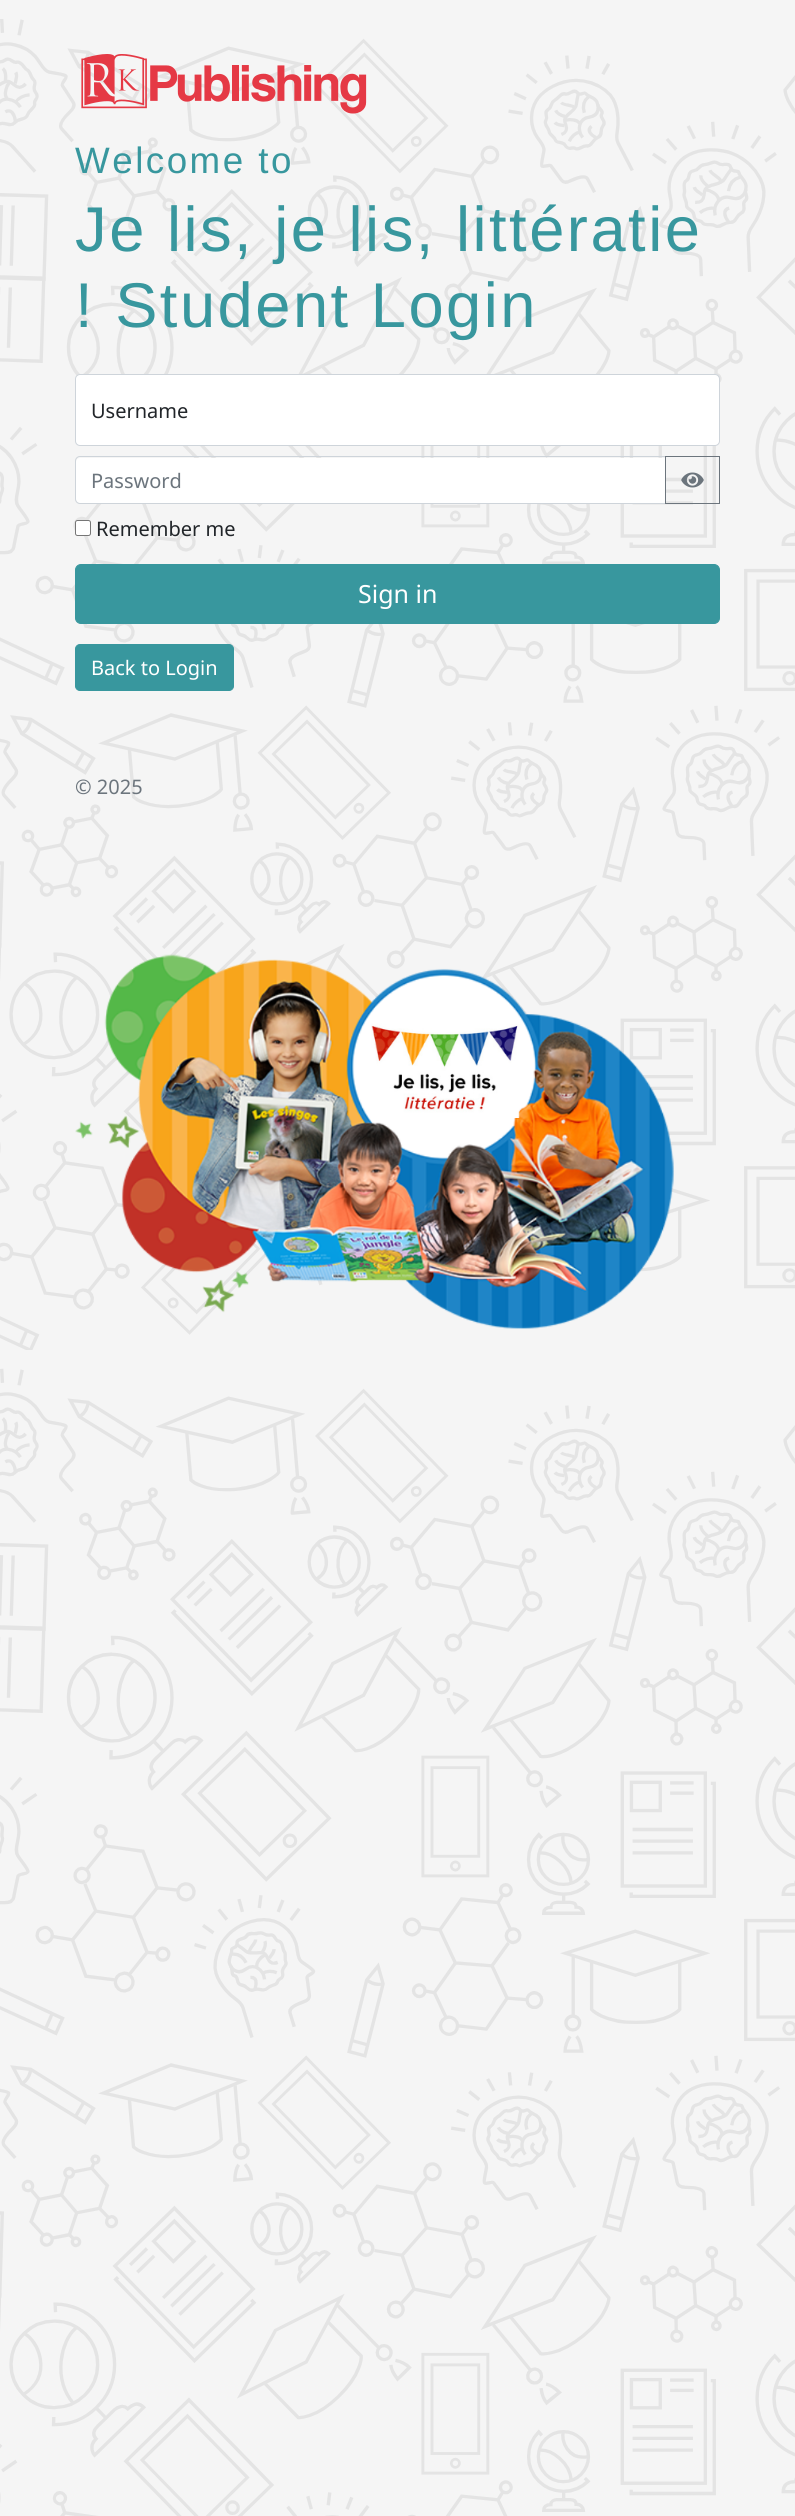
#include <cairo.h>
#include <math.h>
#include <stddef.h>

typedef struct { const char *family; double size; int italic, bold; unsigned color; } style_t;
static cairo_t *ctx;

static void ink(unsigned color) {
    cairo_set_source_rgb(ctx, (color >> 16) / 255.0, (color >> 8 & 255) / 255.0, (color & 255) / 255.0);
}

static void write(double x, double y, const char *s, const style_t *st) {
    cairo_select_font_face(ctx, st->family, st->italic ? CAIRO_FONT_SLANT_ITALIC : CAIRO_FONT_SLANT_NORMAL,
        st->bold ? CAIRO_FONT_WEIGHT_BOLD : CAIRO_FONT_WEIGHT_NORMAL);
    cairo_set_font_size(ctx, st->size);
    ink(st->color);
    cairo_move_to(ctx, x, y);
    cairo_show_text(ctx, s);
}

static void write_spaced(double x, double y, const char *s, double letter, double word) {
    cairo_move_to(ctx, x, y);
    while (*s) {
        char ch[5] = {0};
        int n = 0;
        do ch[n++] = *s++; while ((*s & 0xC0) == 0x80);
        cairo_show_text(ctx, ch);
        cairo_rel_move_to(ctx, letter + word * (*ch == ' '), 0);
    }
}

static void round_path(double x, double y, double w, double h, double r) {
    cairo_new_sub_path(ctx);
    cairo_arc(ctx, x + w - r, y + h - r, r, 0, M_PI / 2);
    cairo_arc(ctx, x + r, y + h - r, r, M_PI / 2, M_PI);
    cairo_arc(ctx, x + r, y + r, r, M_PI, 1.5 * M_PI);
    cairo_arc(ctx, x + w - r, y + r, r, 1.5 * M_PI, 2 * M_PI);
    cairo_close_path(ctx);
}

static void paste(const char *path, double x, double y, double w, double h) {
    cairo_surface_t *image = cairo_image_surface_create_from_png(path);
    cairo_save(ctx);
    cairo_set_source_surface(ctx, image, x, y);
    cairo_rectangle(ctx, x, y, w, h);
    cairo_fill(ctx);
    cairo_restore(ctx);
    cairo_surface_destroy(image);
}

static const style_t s1 = {"Noto Sans", 20, 0, 0, 0x212529};
static const style_t s2 = {"Noto Sans", 20, 0, 0, 0x6c757d};
static const style_t s3 = {"Noto Sans", 25, 0, 0, 0xffffff};
static const style_t s4 = {"Noto Sans", 20, 0, 0, 0xffffff};

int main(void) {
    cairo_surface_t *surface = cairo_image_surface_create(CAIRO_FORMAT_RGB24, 795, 2516);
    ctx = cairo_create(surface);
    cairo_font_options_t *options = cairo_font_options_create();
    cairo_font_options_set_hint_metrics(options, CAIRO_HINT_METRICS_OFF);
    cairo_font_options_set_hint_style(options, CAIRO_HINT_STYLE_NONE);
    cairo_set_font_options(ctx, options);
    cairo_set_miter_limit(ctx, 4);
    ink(0xf5f5f5);
    cairo_paint(ctx);
    paste("pic1.png", 0, 19, 795, 2497);
    paste("pic2.png", 81, 54, 286, 60);
    cairo_select_font_face(ctx, "Liberation Sans", CAIRO_FONT_SLANT_NORMAL, CAIRO_FONT_WEIGHT_NORMAL);
    cairo_set_font_size(ctx, 36.75);
    ink(0x38979e);
    write_spaced(75, 173, "Welcome to", 2.5, 0);
    cairo_set_font_size(ctx, 63.25);
    write_spaced(75, 251, "Je lis, je lis, littératie", 2.5, 0);
    write_spaced(75, 327, "! Student Login", 2.5, 0);
    ink(0xffffff);
    round_path(75.5, 374.5, 644, 71, 4.5);
    cairo_fill_preserve(ctx);
    ink(0xced4da);
    cairo_set_line_width(ctx, 1);
    cairo_stroke(ctx);
    write(91, 418, "Username", &s1);
    ink(0xffffff);
    cairo_new_path(ctx);
    cairo_move_to(ctx, 80, 458);
    cairo_line_to(ctx, 665, 458);
    cairo_line_to(ctx, 665, 503);
    cairo_line_to(ctx, 80, 503);
    cairo_curve_to(ctx, 78, 503, 76, 501, 76, 499);
    cairo_line_to(ctx, 76, 462);
    cairo_curve_to(ctx, 76, 460, 78, 458, 80, 458);
    cairo_close_path(ctx);
    cairo_fill(ctx);
    cairo_new_path(ctx);
    cairo_move_to(ctx, 80, 456.5);
    cairo_line_to(ctx, 665.5, 456.5);
    cairo_line_to(ctx, 665.5, 503.5);
    cairo_line_to(ctx, 80, 503.5);
    cairo_curve_to(ctx, 77.5, 503.5, 75.5, 501.5, 75.5, 499);
    cairo_line_to(ctx, 75.5, 461);
    cairo_curve_to(ctx, 75.5, 458.5, 77.5, 456.5, 80, 456.5);
    cairo_close_path(ctx);
    ink(0xced4da);
    cairo_stroke(ctx);
    write(91, 488, "Password", &s2);
    cairo_rectangle(ctx, 665.5, 456.5, 54, 47);
    cairo_stroke(ctx);
    paste("pic3.png", 681, 472, 23, 16);
    ink(0xffffff);
    round_path(75.5, 520.5, 15, 15, 2);
    cairo_fill_preserve(ctx);
    ink(0x767676);
    cairo_stroke(ctx);
    write(96, 536, "Remember me", &s1);
    ink(0x38979e);
    round_path(75.5, 564.5, 644, 59, 5.5);
    cairo_fill_preserve(ctx);
    cairo_stroke(ctx);
    write(358, 603, "Sign in", &s3);
    ink(0x38979e);
    round_path(75.5, 644.5, 158, 46, 4.5);
    cairo_fill_preserve(ctx);
    cairo_stroke(ctx);
    write(91, 675, "Back to Login", &s4);
    write(75, 794, "© 2025", &s2);
    paste("pic4.png", 75, 954, 599, 375);
    cairo_surface_write_to_png(surface, "screenshot.png");
    cairo_font_options_destroy(options);
    cairo_destroy(ctx);
    cairo_surface_destroy(surface);
    return 0;
}
